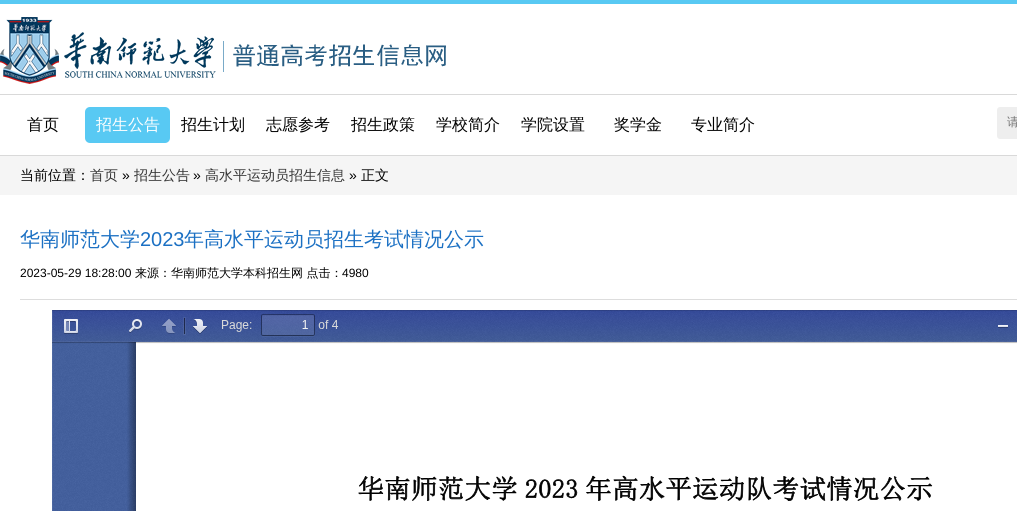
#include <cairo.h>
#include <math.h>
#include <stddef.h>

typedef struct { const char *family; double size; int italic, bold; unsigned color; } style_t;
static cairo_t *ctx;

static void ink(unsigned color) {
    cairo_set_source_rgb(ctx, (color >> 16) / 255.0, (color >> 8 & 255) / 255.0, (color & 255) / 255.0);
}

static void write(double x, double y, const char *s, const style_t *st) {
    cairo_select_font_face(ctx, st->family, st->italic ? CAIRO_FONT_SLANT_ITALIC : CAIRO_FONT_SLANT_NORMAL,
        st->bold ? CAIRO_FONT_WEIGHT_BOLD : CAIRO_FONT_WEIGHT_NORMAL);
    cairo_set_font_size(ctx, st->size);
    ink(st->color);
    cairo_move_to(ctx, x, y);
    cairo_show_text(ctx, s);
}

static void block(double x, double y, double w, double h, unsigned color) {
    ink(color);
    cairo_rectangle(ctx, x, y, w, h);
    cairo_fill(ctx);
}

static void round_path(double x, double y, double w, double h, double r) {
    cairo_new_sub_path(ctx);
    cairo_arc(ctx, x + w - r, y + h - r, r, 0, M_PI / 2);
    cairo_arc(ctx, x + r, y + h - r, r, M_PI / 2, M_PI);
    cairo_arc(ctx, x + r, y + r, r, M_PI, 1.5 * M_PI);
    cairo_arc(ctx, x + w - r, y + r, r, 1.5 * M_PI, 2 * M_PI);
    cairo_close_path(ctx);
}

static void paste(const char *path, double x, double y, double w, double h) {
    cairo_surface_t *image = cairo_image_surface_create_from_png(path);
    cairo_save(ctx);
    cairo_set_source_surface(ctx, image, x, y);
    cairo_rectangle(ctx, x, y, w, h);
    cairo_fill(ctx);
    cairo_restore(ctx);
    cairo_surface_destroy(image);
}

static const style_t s1 = {"WenQuanYi Zen Hei Medium", 16, 0, 0, 0x000000};
static const style_t s2 = {"WenQuanYi Zen Hei Medium", 16, 0, 0, 0xffffff};
static const style_t s3 = {"WenQuanYi Zen Hei Medium", 12, 0, 0, 0x757575};
static const style_t s4 = {"WenQuanYi Zen Hei Medium", 14, 0, 0, 0x000000};
static const style_t s5 = {"WenQuanYi Zen Hei Medium", 14, 0, 0, 0x333333};
static const style_t s6 = {"Liberation Sans", 14, 0, 0, 0x000000};
static const style_t s7 = {"WenQuanYi Zen Hei Medium", 20, 0, 0, 0x1b70c3};
static const style_t s8 = {"Liberation Sans", 20, 0, 0, 0x1b70c3};
static const style_t s9 = {"Liberation Sans", 12, 0, 0, 0x000000};
static const style_t s10 = {"WenQuanYi Zen Hei Medium", 12, 0, 0, 0x000000};

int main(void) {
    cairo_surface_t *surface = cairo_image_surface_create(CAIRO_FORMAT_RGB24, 1017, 511);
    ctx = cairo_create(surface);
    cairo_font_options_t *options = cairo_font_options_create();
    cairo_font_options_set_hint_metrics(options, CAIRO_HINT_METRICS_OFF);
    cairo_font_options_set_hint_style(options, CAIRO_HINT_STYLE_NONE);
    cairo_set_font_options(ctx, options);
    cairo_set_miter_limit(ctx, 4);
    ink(0xffffff);
    cairo_paint(ctx);
    block(0, 94, 1017, 1, 0xd9d9d9);
    block(0, 0, 1017, 4, 0x58c9f3);
    paste("pic1.png", 0, 17, 216, 67);
    paste("pic2.png", 223, 41, 223, 31);
    block(0, 155, 1017, 1, 0xd9d9d9);
    write(27, 130, "首页", &s1);
    ink(0x58c9f3);
    round_path(85, 107, 85, 36, 5);
    cairo_fill(ctx);
    write(96, 130, "招生公告", &s2);
    write(181, 130, "招生计划", &s1);
    write(266, 130, "志愿参考", &s1);
    write(351, 130, "招生政策", &s1);
    write(436, 130, "学校简介", &s1);
    write(521, 130, "学院设置", &s1);
    write(614, 130, "奖学金", &s1);
    write(691, 130, "专业简介", &s1);
    ink(0xeeeeee);
    round_path(997, 107, 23, 32, 3);
    cairo_fill(ctx);
    write(1007, 126, "请", &s3);
    block(0, 156, 1017, 39, 0xf5f5f5);
    write(20, 180, "当前位置：", &s4);
    write(90, 180, "首页", &s5);
    write(122, 180, "»", &s6);
    write(134, 180, "招生公告", &s5);
    write(193, 180, "»", &s6);
    write(205, 180, "高水平运动员招生信息", &s5);
    write(349, 180, "»", &s6);
    write(361, 180, "正文", &s4);
    block(20, 299, 997, 1, 0xdddddd);
    write(20, 246, "华南师范大学", &s7);
    write(140, 246, "2023", &s8);
    write(184, 246, "年高水平运动员招生考试情况公示", &s7);
    write(20, 277, "2023-05-29 18:28:00", &s9);
    write(135, 277, "来源：华南师范大学本科招生网 点击：", &s10);
    write(342, 277, "4980", &s9);
    paste("pic3.png", 52, 310, 965, 201);
    cairo_surface_write_to_png(surface, "screenshot.png");
    cairo_font_options_destroy(options);
    cairo_destroy(ctx);
    cairo_surface_destroy(surface);
    return 0;
}
